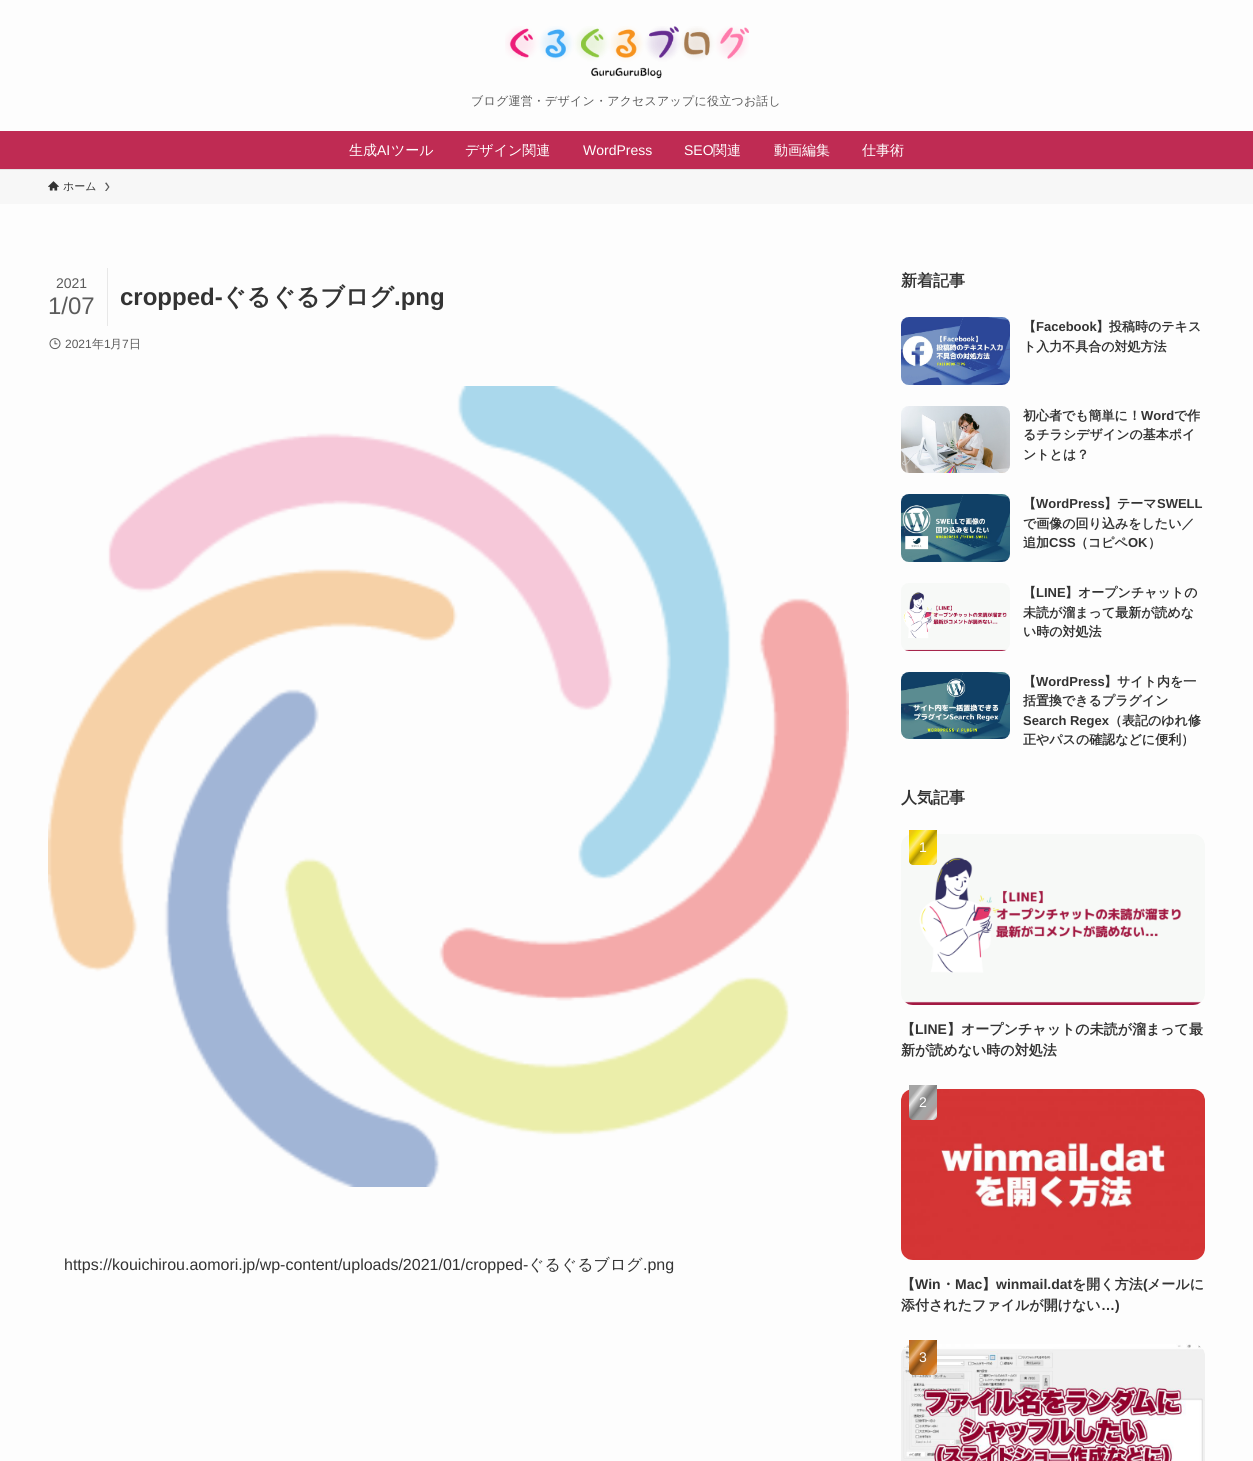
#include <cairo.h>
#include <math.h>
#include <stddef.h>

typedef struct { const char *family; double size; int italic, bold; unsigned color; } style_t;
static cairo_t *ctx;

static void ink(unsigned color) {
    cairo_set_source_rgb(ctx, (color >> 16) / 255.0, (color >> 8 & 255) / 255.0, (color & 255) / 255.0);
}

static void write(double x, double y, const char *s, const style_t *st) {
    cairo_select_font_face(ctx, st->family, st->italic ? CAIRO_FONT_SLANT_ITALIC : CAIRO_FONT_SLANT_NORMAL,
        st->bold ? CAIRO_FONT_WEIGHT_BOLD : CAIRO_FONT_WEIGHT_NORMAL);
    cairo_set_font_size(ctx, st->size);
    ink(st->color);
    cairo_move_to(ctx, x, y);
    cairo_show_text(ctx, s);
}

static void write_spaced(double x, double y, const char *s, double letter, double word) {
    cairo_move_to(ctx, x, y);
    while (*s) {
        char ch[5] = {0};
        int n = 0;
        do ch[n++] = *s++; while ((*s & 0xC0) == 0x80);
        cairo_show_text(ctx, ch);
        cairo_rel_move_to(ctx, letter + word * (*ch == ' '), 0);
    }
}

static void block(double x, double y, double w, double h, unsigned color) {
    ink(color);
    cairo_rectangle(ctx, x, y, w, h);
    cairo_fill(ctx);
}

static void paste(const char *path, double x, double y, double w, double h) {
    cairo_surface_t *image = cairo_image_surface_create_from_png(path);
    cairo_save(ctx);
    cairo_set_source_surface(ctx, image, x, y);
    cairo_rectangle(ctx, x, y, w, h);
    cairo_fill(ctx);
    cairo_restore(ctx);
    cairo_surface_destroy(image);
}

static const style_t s1 = {"WenQuanYi Zen Hei Medium", 14, 0, 0, 0xffffff};
static const style_t s2 = {"Liberation Sans", 14, 0, 0, 0xffffff};
static const style_t s3 = {"WenQuanYi Zen Hei Medium", 11, 0, 0, 0x333333};
static const style_t s4 = {"Liberation Sans", 14, 0, 0, 0x5b5b5b};
static const style_t s5 = {"Liberation Sans", 24, 0, 0, 0x5b5b5b};
static const style_t s6 = {"Liberation Sans", 24, 0, 1, 0x333333};
static const style_t s7 = {"WenQuanYi Zen Hei", 24, 0, 1, 0x333333};
static const style_t s8 = {"Liberation Sans", 12, 0, 0, 0x5b5b5b};
static const style_t s9 = {"WenQuanYi Zen Hei Medium", 12, 0, 0, 0x5b5b5b};
static const style_t s10 = {"Liberation Sans", 16, 0, 0, 0x333333};
static const style_t s11 = {"WenQuanYi Zen Hei Medium", 16, 0, 0, 0x333333};
static const style_t s12 = {"WenQuanYi Zen Hei", 16, 0, 1, 0x333333};
static const style_t s13 = {"WenQuanYi Zen Hei", 13, 0, 1, 0x333333};
static const style_t s14 = {"Liberation Sans", 13, 0, 1, 0x333333};
static const style_t s15 = {"WenQuanYi Zen Hei", 14, 0, 1, 0x333333};
static const style_t s16 = {"Liberation Sans", 14, 0, 1, 0x333333};

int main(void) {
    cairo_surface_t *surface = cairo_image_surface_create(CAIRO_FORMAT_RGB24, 1253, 1461);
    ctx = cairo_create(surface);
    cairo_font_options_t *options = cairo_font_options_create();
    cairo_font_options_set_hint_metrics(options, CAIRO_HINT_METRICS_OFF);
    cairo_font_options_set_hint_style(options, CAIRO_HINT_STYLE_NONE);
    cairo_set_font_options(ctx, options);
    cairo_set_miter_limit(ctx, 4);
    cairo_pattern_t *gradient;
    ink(0xfdfdfd);
    cairo_paint(ctx);
    block(0, 169, 1253, 1, 0xe4e4e4);
    paste("pic1.png", 505, 26, 244, 53);
    cairo_select_font_face(ctx, "WenQuanYi Zen Hei Medium", CAIRO_FONT_SLANT_NORMAL, CAIRO_FONT_WEIGHT_NORMAL);
    cairo_set_font_size(ctx, 12);
    ink(0x5b5b5b);
    write_spaced(471, 105, "ブログ運営・デザイン・アクセスアップに役立つお話し", 0.2, 0);
    block(0, 131, 1253, 38, 0xbf2b53);
    write(349, 155, "生成", &s1);
    write(377, 155, "AI", &s2);
    write(391, 155, "ツール", &s1);
    write(465, 155, "デザイン関連", &s1);
    write(583, 155, "WordPress", &s2);
    write(684, 155, "SEO", &s2);
    write(713, 155, "関連", &s1);
    write(774, 155, "動画編集", &s1);
    write(862, 155, "仕事術", &s1);
    block(0, 170, 1253, 34, 0xf7f7f7);
    paste("pic2.png", 48, 181, 11, 10);
    write(63, 190, "ホーム", &s3);
    ink(0x5a5a5a);
    cairo_new_path(ctx);
    cairo_move_to(ctx, 106.5, 182.5);
    cairo_line_to(ctx, 105, 183);
    cairo_line_to(ctx, 108, 187);
    cairo_line_to(ctx, 105, 191);
    cairo_line_to(ctx, 106.5, 191);
    cairo_line_to(ctx, 109.5, 187);
    cairo_close_path(ctx);
    cairo_fill(ctx);
    block(107, 268, 1, 58, 0xe8e8e8);
    write(56, 288, "2021", &s4);
    write(48, 314, "1/07", &s5);
    write(120, 305, "cropped-", &s6);
    write(222, 305, "ぐるぐるブログ", &s7);
    write(394, 305, ".png", &s6);
    paste("pic3.png", 49, 338, 12, 12);
    write(65, 348, "2021", &s8);
    write(92, 348, "年", &s9);
    write(104, 348, "1", &s8);
    write(110, 348, "月", &s9);
    write(122, 348, "7", &s8);
    write(129, 348, "日", &s9);
    paste("pic4.png", 48, 386, 801, 801);
    write(64, 1270, "https://kouichirou.aomori.jp/wp-content/uploads/2021/01/cropped-", &s10);
    write(528, 1270, "ぐるぐるブログ", &s11);
    write(643, 1270, ".png", &s10);
    write(901, 286, "新着記事", &s12);
    paste("pic5.png", 901, 317, 109, 68);
    write(1023, 331, "【", &s13);
    write(1036, 331, "Facebook", &s14);
    write(1096, 331, "】投稿時のテキス", &s13);
    write(1023, 351, "ト入力不具合の対処方法", &s13);
    paste("pic6.png", 901, 406, 109, 67);
    write(1023, 420, "初心者でも簡単に！", &s13);
    write(1141, 420, "Word", &s14);
    write(1174, 420, "で作", &s13);
    write(1023, 439, "るチラシデザインの基本ポイ", &s13);
    write(1023, 459, "ントとは？", &s13);
    paste("pic7.png", 901, 494, 109, 68);
    write(1023, 508, "【", &s13);
    write(1036, 508, "WordPress", &s14);
    write(1104, 508, "】テーマ", &s13);
    write(1157, 508, "SWELL", &s14);
    write(1023, 528, "で画像の回り込みをしたい／", &s13);
    write(1023, 547, "追加", &s13);
    write(1049, 547, "CSS", &s14);
    write(1075, 547, "（コピペ", &s13);
    write(1128, 547, "OK", &s14);
    write(1148, 547, "）", &s13);
    paste("pic8.png", 901, 583, 109, 68);
    write(1023, 597, "【", &s13);
    write(1036, 597, "LINE", &s14);
    write(1065, 597, "】オープンチャットの", &s13);
    write(1023, 617, "未読が溜まって最新が読めな", &s13);
    write(1023, 636, "い時の対処法", &s13);
    paste("pic9.png", 901, 672, 109, 67);
    write(1023, 686, "【", &s13);
    write(1036, 686, "WordPress", &s14);
    write(1104, 686, "】サイト内を一", &s13);
    write(1023, 705, "括置換できるプラグイン", &s13);
    write(1023, 725, "Search Regex", &s14);
    write(1109, 725, "（表記のゆれ修", &s13);
    write(1023, 744, "正やパスの確認などに便利）", &s13);
    write(901, 803, "人気記事", &s12);
    paste("pic10.png", 901, 834, 304, 171);
    gradient = cairo_pattern_create_linear(940, 861, 906, 834);
    cairo_pattern_add_color_stop_rgba(gradient, 0, 0.969, 0.749, 0.02, 1);
    cairo_pattern_add_color_stop_rgba(gradient, 0.1, 0.988, 0.918, 0.498, 1);
    cairo_pattern_add_color_stop_rgba(gradient, 0.2, 0.988, 0.843, 0, 1);
    cairo_pattern_add_color_stop_rgba(gradient, 0.3, 0.969, 0.827, 0.02, 1);
    cairo_pattern_add_color_stop_rgba(gradient, 0.4, 0.918, 0.792, 0.071, 1);
    cairo_pattern_add_color_stop_rgba(gradient, 0.5, 0.675, 0.576, 0.012, 1);
    cairo_pattern_add_color_stop_rgba(gradient, 0.6, 0.969, 0.827, 0.02, 1);
    cairo_pattern_add_color_stop_rgba(gradient, 0.7, 0.988, 0.918, 0.498, 1);
    cairo_pattern_add_color_stop_rgba(gradient, 0.8, 0.969, 0.906, 0.02, 1);
    cairo_pattern_add_color_stop_rgba(gradient, 0.9, 0.918, 0.792, 0.071, 1);
    cairo_pattern_add_color_stop_rgba(gradient, 1, 0.969, 0.749, 0.02, 1);
    cairo_set_source(ctx, gradient);
    cairo_pattern_destroy(gradient);
    cairo_new_path(ctx);
    cairo_move_to(ctx, 909, 830);
    cairo_line_to(ctx, 937, 830);
    cairo_line_to(ctx, 937, 861);
    cairo_curve_to(ctx, 937, 863, 935, 865, 933, 865);
    cairo_line_to(ctx, 913, 865);
    cairo_curve_to(ctx, 911, 865, 909, 863, 909, 861);
    cairo_close_path(ctx);
    cairo_fill(ctx);
    write(919, 852, "1", &s2);
    write(901, 1034, "【", &s15);
    write(915, 1034, "LINE", &s16);
    write(947, 1034, "】オープンチャットの未読が溜まって最", &s15);
    write(901, 1055, "新が読めない時の対処法", &s15);
    paste("pic11.png", 901, 1089, 304, 171);
    gradient = cairo_pattern_create_linear(940, 1116, 906, 1089);
    cairo_pattern_add_color_stop_rgba(gradient, 0, 0.647, 0.647, 0.647, 1);
    cairo_pattern_add_color_stop_rgba(gradient, 0.1, 0.898, 0.898, 0.898, 1);
    cairo_pattern_add_color_stop_rgba(gradient, 0.2, 0.682, 0.612, 0.612, 1);
    cairo_pattern_add_color_stop_rgba(gradient, 0.3, 0.647, 0.647, 0.647, 1);
    cairo_pattern_add_color_stop_rgba(gradient, 0.4, 0.647, 0.647, 0.647, 1);
    cairo_pattern_add_color_stop_rgba(gradient, 0.5, 0.498, 0.498, 0.498, 1);
    cairo_pattern_add_color_stop_rgba(gradient, 0.6, 0.647, 0.647, 0.647, 1);
    cairo_pattern_add_color_stop_rgba(gradient, 0.7, 0.898, 0.898, 0.898, 1);
    cairo_pattern_add_color_stop_rgba(gradient, 0.8, 0.647, 0.647, 0.647, 1);
    cairo_pattern_add_color_stop_rgba(gradient, 1, 0.647, 0.647, 0.647, 1);
    cairo_set_source(ctx, gradient);
    cairo_pattern_destroy(gradient);
    cairo_new_path(ctx);
    cairo_move_to(ctx, 909, 1085);
    cairo_line_to(ctx, 937, 1085);
    cairo_line_to(ctx, 937, 1116);
    cairo_curve_to(ctx, 937, 1118, 935, 1120, 933, 1120);
    cairo_line_to(ctx, 913, 1120);
    cairo_curve_to(ctx, 911, 1120, 909, 1118, 909, 1116);
    cairo_close_path(ctx);
    cairo_fill(ctx);
    write(919, 1107, "2", &s2);
    write(901, 1289, "【", &s15);
    write(915, 1289, "Win", &s16);
    write(941, 1289, "・", &s15);
    write(955, 1289, "Mac", &s16);
    write(982, 1289, "】", &s15);
    write(996, 1289, "winmail.dat", &s16);
    write(1072, 1289, "を開く方法", &s15);
    write(1143, 1289, "(", &s16);
    write(1147, 1289, "メールに", &s15);
    write(901, 1310, "添付されたファイルが開けない", &s15);
    write(1101, 1310, "…)", &s16);
    paste("pic12.png", 901, 1344, 304, 117);
    gradient = cairo_pattern_create_linear(940, 1371, 906, 1344);
    cairo_pattern_add_color_stop_rgba(gradient, 0, 0.769, 0.396, 0.133, 1);
    cairo_pattern_add_color_stop_rgba(gradient, 0.1, 0.91, 0.698, 0.49, 1);
    cairo_pattern_add_color_stop_rgba(gradient, 0.2, 0.816, 0.447, 0.09, 1);
    cairo_pattern_add_color_stop_rgba(gradient, 0.3, 0.769, 0.447, 0.133, 1);
    cairo_pattern_add_color_stop_rgba(gradient, 0.4, 0.725, 0.447, 0.18, 1);
    cairo_pattern_add_color_stop_rgba(gradient, 0.5, 0.514, 0.298, 0.09, 1);
    cairo_pattern_add_color_stop_rgba(gradient, 0.6, 0.769, 0.447, 0.133, 1);
    cairo_pattern_add_color_stop_rgba(gradient, 0.7, 0.91, 0.698, 0.49, 1);
    cairo_pattern_add_color_stop_rgba(gradient, 0.8, 0.769, 0.502, 0.133, 1);
    cairo_pattern_add_color_stop_rgba(gradient, 0.9, 0.725, 0.447, 0.18, 1);
    cairo_pattern_add_color_stop_rgba(gradient, 1, 0.769, 0.396, 0.133, 1);
    cairo_set_source(ctx, gradient);
    cairo_pattern_destroy(gradient);
    cairo_new_path(ctx);
    cairo_move_to(ctx, 909, 1340);
    cairo_line_to(ctx, 937, 1340);
    cairo_line_to(ctx, 937, 1371);
    cairo_curve_to(ctx, 937, 1373, 935, 1375, 933, 1375);
    cairo_line_to(ctx, 913, 1375);
    cairo_curve_to(ctx, 911, 1375, 909, 1373, 909, 1371);
    cairo_close_path(ctx);
    cairo_fill(ctx);
    write(919, 1362, "3", &s2);
    cairo_surface_write_to_png(surface, "screenshot.png");
    cairo_font_options_destroy(options);
    cairo_destroy(ctx);
    cairo_surface_destroy(surface);
    return 0;
}
